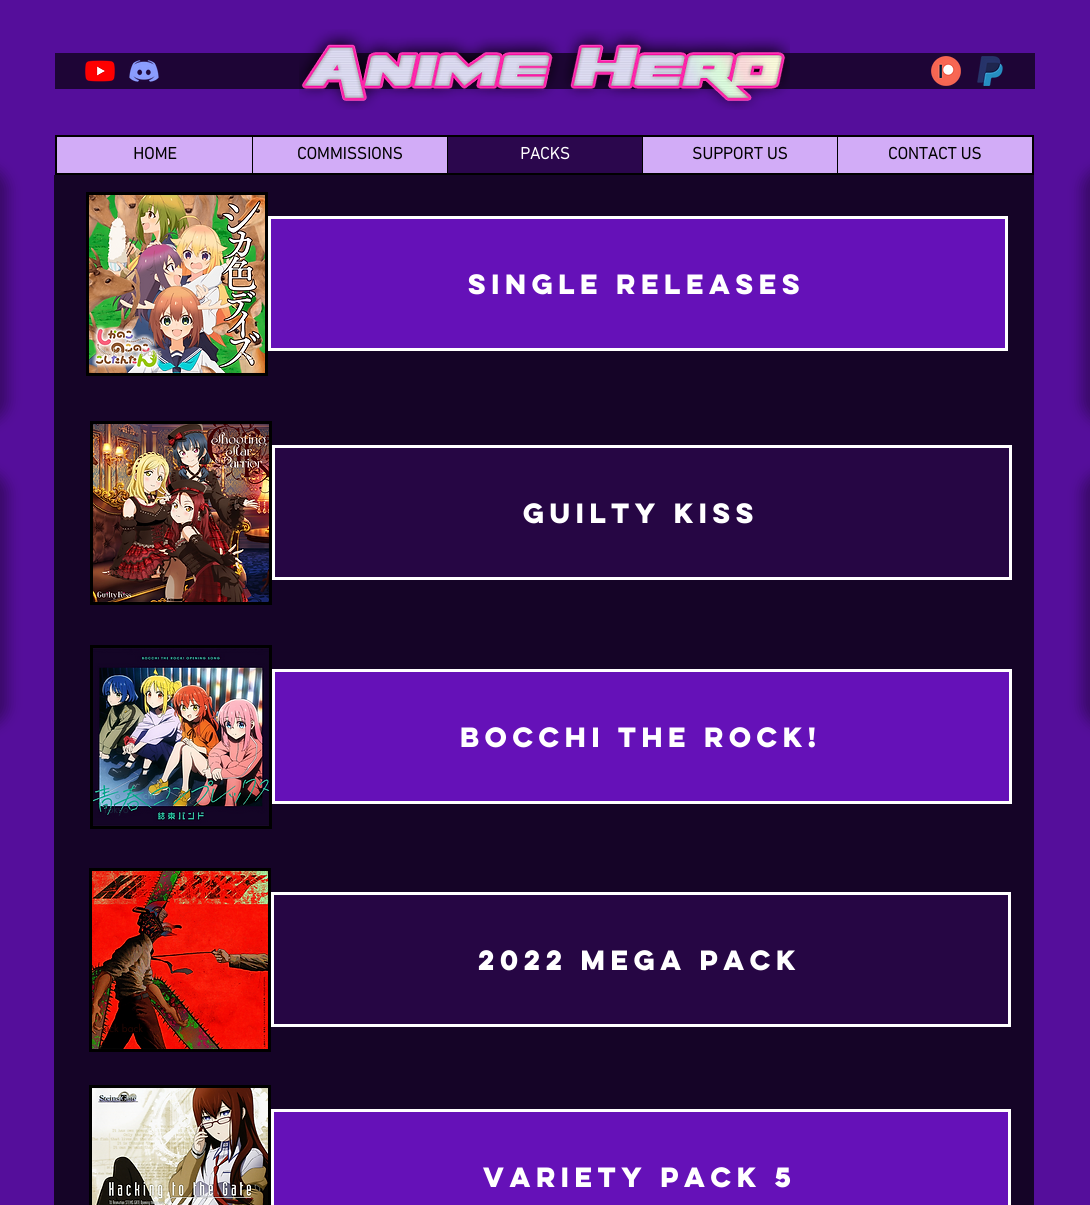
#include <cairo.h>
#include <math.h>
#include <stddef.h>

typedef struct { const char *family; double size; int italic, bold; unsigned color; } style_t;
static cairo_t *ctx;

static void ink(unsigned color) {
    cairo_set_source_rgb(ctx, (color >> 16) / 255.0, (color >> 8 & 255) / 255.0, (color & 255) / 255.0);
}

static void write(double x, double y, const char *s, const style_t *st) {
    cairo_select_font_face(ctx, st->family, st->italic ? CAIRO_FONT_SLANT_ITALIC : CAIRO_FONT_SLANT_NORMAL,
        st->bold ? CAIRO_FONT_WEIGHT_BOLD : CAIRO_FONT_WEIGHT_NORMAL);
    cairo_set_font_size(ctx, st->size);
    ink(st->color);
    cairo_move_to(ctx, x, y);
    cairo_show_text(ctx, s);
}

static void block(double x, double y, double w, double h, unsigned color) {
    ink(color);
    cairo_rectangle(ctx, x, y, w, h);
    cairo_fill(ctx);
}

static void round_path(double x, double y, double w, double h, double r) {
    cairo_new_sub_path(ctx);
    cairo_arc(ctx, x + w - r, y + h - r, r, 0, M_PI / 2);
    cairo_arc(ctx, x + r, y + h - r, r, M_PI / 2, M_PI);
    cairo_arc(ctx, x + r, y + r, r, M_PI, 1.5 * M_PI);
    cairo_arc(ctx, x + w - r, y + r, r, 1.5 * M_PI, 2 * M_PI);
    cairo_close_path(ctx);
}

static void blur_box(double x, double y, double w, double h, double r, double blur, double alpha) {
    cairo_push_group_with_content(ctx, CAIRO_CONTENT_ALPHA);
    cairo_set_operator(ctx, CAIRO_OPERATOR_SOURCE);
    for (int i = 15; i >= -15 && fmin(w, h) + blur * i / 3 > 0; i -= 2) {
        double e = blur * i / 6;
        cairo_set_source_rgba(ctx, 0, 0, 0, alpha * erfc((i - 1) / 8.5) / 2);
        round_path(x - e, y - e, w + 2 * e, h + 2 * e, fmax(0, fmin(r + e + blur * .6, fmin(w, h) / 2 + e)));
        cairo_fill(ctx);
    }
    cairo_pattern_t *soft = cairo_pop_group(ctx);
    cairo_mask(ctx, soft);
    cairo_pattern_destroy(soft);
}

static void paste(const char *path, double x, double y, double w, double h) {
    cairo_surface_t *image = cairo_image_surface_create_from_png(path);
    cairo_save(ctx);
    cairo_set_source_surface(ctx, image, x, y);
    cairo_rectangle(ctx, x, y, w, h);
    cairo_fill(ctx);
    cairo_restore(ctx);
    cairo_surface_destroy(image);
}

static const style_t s1 = {"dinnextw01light", 17, 0, 1, 0x000000};
static const style_t s2 = {"dinnextw01light", 17, 0, 1, 0xffffff};
static const style_t s3 = {"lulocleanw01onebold", 25, 0, 1, 0xffffff};
static const style_t s4 = {"futura", 10, 0, 0, 0xcabfac};
static const style_t s5 = {"Liberation Sans", 12, 0, 0, 0xc3ac94};
static const style_t s6 = {"futura", 10, 0, 0, 0x79312c};
static const style_t s7 = {"Liberation Sans", 12, 0, 0, 0x1f182c};
static const style_t s8 = {"futura", 10, 0, 0, 0x5a9bb2};
static const style_t s9 = {"futura", 10, 0, 0, 0x1a263c};
static const style_t s10 = {"futura", 10, 0, 0, 0x270703};

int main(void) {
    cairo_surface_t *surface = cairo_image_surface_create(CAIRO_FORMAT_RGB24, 1090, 1205);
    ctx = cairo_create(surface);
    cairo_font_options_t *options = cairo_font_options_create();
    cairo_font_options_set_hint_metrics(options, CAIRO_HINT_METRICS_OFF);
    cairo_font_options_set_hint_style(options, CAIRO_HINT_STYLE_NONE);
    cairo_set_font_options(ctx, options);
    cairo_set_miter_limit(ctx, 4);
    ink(0x550e9b);
    cairo_paint(ctx);
    block(55, 53, 980, 36, 0x1e0536);
    paste("pic1.png", 299, 29, 491, 81);
    paste("pic2.png", 85, 60, 30, 22);
    paste("pic3.png", 129, 60, 30, 22);
    paste("pic4.png", 931, 56, 30, 30);
    paste("pic5.png", 977, 56, 26, 30);
    ink(0x000000);
    blur_box(-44, 167, 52, 256, 23, 7, 0.34);
    blur_box(1082, 167, 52, 256, 23, 7, 0.34);
    blur_box(-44, 471, 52, 256, 23, 7, 0.34);
    blur_box(1082, 471, 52, 256, 23, 7, 0.34);
    ink(0xd2acf7);
    cairo_rectangle(ctx, 56, 136, 977, 38);
    cairo_fill_preserve(ctx);
    ink(0x000000);
    cairo_stroke(ctx);
    write(133, 159, "HOME", &s1);
    block(252, 137, 1, 36, 0x000000);
    write(297, 159, "COMMISSIONS", &s1);
    block(448, 137, 194, 36, 0x2b074d);
    block(447, 137, 1, 36, 0x000000);
    write(520, 159, "PACKS", &s2);
    block(642, 137, 1, 36, 0x000000);
    write(692, 159, "SUPPORT US", &s1);
    block(837, 137, 1, 36, 0x000000);
    write(888, 159, "CONTACT US", &s1);
    block(54, 175, 980, 1030, 0x150427);
    ink(0x6511b8);
    cairo_rectangle(ctx, 269.5, 217.5, 737, 132);
    cairo_fill_preserve(ctx);
    ink(0xffffff);
    cairo_set_line_width(ctx, 3);
    cairo_stroke(ctx);
    write(468, 294, "Single Releases", &s3);
    block(86, 192, 182, 184, 0x000000);
    paste("pic6.png", 89, 195, 176, 178);
    write(99, 356, "Shika Iro Days", &s4);
    write(238, 360, "1/1", &s5);
    ink(0x260644);
    cairo_rectangle(ctx, 273.5, 446.5, 737, 132);
    cairo_fill_preserve(ctx);
    ink(0xffffff);
    cairo_stroke(ctx);
    write(523, 523, "Guilty Kiss", &s3);
    block(90, 421, 182, 184, 0x000000);
    paste("pic7.png", 93, 424, 176, 178);
    write(103, 575, "Shooting Star", &s6);
    write(242, 589, "1", &s7);
    ink(0x6511b8);
    cairo_rectangle(ctx, 273.5, 670.5, 737, 132);
    cairo_fill_preserve(ctx);
    ink(0xffffff);
    cairo_stroke(ctx);
    write(460, 747, "Bocchi the rock!", &s3);
    block(90, 645, 182, 184, 0x000000);
    paste("pic8.png", 93, 648, 176, 178);
    write(115, 799, "o", &s8);
    write(143, 799, "chi", &s8);
    write(103, 813, "Tokyo", &s9);
    ink(0x260644);
    cairo_rectangle(ctx, 272.5, 893.5, 737, 132);
    cairo_fill_preserve(ctx);
    ink(0xffffff);
    cairo_stroke(ctx);
    write(478, 970, "2022 Mega Pack", &s3);
    block(89, 868, 182, 184, 0x000000);
    paste("pic9.png", 92, 871, 176, 178);
    write(102, 1032, "kick back", &s10);
    block(89, 1085, 182, 120, 0x000000);
    paste("pic10.png", 92, 1088, 176, 117);
    ink(0x6511b8);
    cairo_rectangle(ctx, 272.5, 1110.5, 737, 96);
    cairo_fill_preserve(ctx);
    ink(0xffffff);
    cairo_stroke(ctx);
    write(483, 1187, "Variety Pack 5", &s3);
    cairo_surface_write_to_png(surface, "screenshot.png");
    cairo_font_options_destroy(options);
    cairo_destroy(ctx);
    cairo_surface_destroy(surface);
    return 0;
}
